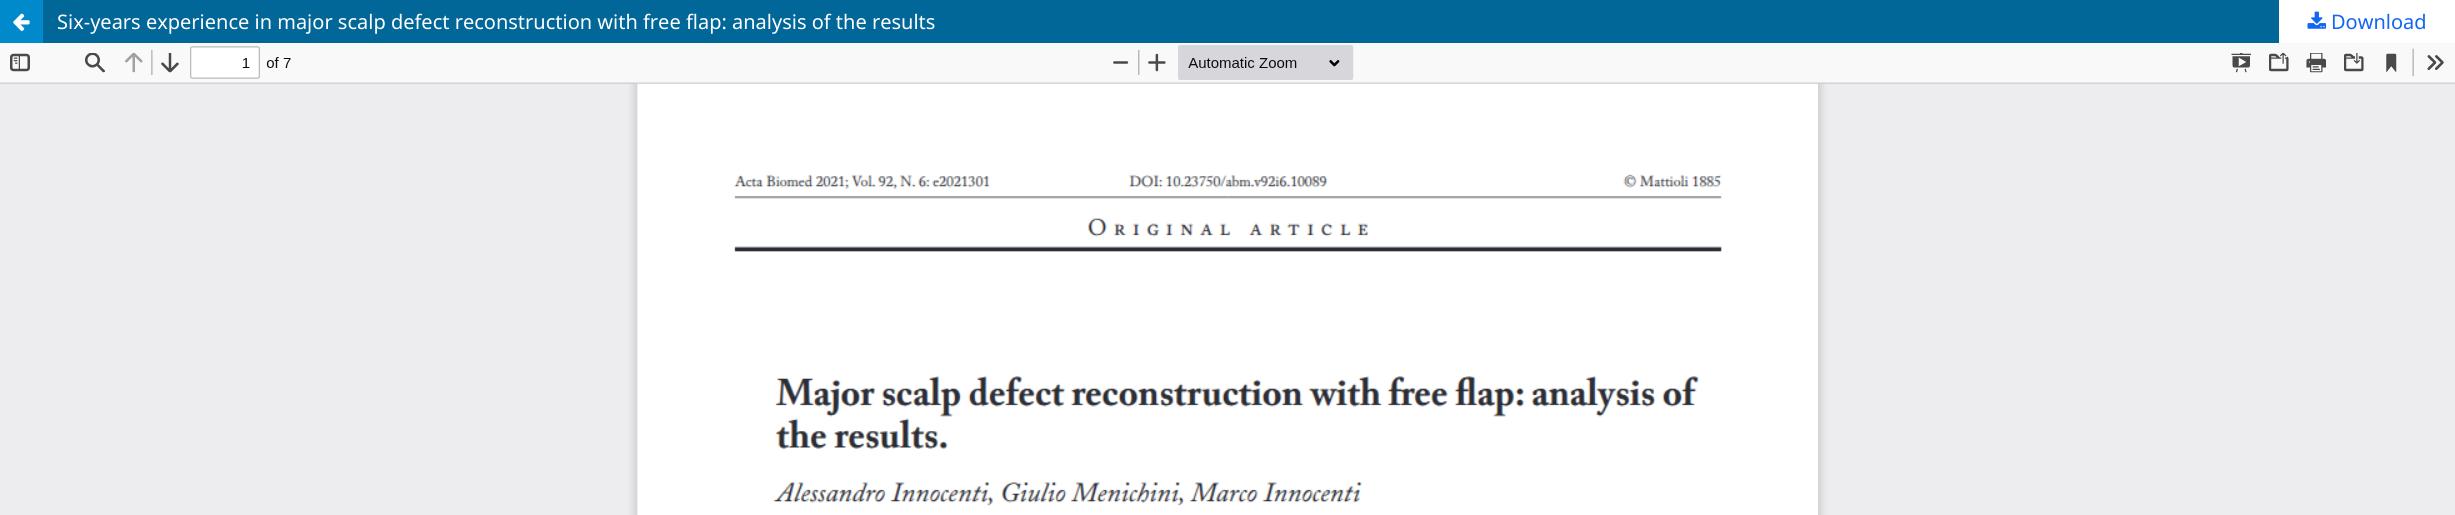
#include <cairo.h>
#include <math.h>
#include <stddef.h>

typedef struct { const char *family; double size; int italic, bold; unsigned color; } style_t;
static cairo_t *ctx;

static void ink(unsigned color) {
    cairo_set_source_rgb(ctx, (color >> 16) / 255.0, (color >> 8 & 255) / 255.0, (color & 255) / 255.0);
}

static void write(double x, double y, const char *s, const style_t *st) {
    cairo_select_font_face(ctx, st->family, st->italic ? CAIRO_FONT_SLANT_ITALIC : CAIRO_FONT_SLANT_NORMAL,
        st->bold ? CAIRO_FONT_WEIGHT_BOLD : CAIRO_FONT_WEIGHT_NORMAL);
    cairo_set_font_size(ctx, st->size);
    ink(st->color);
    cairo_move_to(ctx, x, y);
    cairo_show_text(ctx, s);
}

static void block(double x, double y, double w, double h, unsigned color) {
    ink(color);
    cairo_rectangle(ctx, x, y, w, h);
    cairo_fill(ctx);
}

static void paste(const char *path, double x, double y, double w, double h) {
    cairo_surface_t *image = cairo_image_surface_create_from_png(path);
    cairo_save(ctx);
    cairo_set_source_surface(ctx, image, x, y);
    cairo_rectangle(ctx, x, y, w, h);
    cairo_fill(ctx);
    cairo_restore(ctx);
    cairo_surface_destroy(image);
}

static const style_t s1 = {"Noto Sans", 20, 0, 0, 0xffffff};
static const style_t s2 = {"Noto Sans", 20, 0, 0, 0x1266f1};

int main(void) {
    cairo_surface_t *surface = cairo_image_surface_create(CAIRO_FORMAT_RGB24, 2455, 515);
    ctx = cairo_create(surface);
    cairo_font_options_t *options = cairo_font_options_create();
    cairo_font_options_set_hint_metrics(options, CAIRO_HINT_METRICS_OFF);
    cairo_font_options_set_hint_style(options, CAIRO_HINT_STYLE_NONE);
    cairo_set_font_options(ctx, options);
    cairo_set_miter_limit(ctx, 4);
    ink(0xffffff);
    cairo_paint(ctx);
    block(43, 0, 2236, 43, 0x006798);
    block(0, 0, 43, 43, 0x008acb);
    paste("pic1.png", 13, 13, 17, 18);
    write(57, 29, "Six-years experience in major scalp defect reconstruction with free flap: analysis of the results", &s1);
    paste("pic2.png", 2307, 11, 20, 18);
    write(2331, 29, "Download", &s2);
    paste("pic3.png", 0, 43, 2455, 472);
    cairo_surface_write_to_png(surface, "screenshot.png");
    cairo_font_options_destroy(options);
    cairo_destroy(ctx);
    cairo_surface_destroy(surface);
    return 0;
}
